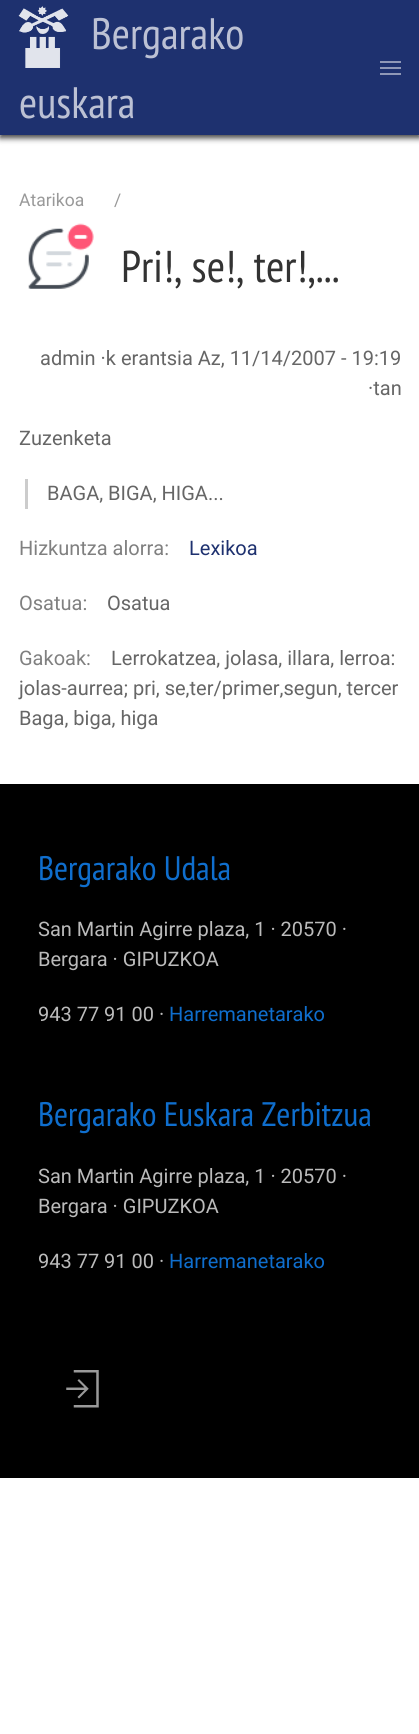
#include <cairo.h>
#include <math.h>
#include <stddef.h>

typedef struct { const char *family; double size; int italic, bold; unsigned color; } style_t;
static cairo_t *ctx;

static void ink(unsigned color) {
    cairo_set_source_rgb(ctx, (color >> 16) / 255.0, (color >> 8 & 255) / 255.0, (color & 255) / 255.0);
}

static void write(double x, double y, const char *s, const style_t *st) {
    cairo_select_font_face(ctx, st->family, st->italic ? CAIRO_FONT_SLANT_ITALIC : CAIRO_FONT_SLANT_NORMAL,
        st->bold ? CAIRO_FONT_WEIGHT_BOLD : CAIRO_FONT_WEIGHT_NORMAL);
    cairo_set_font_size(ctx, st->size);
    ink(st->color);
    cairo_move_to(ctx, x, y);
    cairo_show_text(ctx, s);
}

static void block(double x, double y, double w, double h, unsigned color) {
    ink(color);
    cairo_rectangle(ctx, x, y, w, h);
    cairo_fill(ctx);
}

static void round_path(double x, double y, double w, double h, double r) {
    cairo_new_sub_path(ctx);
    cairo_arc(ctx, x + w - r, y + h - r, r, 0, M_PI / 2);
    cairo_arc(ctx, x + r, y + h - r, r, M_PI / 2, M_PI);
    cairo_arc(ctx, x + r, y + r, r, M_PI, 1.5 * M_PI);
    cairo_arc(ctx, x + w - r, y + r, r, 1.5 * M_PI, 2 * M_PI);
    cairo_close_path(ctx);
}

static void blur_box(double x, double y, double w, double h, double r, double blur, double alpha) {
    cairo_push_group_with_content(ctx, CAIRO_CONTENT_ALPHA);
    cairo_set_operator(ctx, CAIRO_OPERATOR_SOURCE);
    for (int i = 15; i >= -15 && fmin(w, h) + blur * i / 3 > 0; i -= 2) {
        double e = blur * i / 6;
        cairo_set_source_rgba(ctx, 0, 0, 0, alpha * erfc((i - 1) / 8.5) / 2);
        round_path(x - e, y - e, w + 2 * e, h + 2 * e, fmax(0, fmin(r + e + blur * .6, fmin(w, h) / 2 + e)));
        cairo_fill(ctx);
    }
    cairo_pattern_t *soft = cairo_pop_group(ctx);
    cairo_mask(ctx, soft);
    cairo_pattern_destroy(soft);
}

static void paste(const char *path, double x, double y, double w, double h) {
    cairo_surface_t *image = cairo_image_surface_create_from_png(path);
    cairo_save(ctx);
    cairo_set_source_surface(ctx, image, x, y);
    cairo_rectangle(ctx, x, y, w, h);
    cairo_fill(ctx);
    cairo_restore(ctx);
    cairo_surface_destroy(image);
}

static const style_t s1 = {"PT Sans Narrow", 44, 0, 0, 0xbcc1d4};
static const style_t s2 = {"Roboto", 17.5, 0, 0, 0x999999};
static const style_t s3 = {"PT Sans Narrow", 44.5, 0, 0, 0x333333};
static const style_t s4 = {"Roboto", 20, 0, 0, 0x666666};
static const style_t s5 = {"Roboto", 20, 0, 0, 0x808080};
static const style_t s6 = {"Roboto", 20, 0, 0, 0x1e316f};
static const style_t s7 = {"PT Sans Narrow", 34, 0, 0, 0x0f6ecd};
static const style_t s8 = {"Roboto", 20, 0, 0, 0xbbbbbb};
static const style_t s9 = {"Roboto", 20, 0, 0, 0x0f6ecd};

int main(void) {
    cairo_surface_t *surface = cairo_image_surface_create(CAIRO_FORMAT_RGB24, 419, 1734);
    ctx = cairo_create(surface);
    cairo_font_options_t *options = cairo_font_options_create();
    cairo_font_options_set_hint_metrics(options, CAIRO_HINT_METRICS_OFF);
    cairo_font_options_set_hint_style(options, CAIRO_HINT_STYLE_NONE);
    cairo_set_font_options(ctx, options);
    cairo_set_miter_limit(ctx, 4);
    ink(0xffffff);
    cairo_paint(ctx);
    ink(0x000000);
    blur_box(0, 3, 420, 135, 0, 3, 0.75);
    block(0, 0, 419, 135, 0x1e316f);
    paste("pic1.png", 18, 6, 51, 62);
    write(91, 49, "Bergarako", &s1);
    write(19, 118, "euskara", &s1);
    block(380, 67, 21, 2, 0x8f98b7);
    block(380, 61, 21, 2, 0x8f98b7);
    block(380, 73, 21, 2, 0x8f98b7);
    write(19, 206, "Atarikoa", &s2);
    write(114, 206, "/", &s2);
    paste("pic2.png", 28, 223, 66, 66);
    write(121, 282, "Pri!, se!, ter!,...", &s3);
    write(40, 365, "admin ·k erantsia Az, 11/14/2007 - 19:19", &s4);
    write(368, 395, "·tan", &s4);
    write(19, 445, "Zuzenketa", &s4);
    block(25, 479, 3, 30, 0xcccccc);
    write(47, 500, "BAGA, BIGA, HIGA...", &s4);
    write(19, 555, "Hizkuntza alorra:", &s5);
    write(189, 555, "Lexikoa", &s6);
    write(19, 610, "Osatua:", &s5);
    write(107, 610, "Osatua", &s4);
    write(111, 665, "Lerrokatzea, jolasa, illara, lerroa:", &s4);
    write(19, 695, "jolas-aurrea; pri, se,ter/primer,segun, tercer", &s4);
    write(19, 725, "Baga, biga, higa", &s4);
    write(19, 665, "Gakoak:", &s5);
    block(0, 784, 419, 694, 0x000000);
    write(38, 880, "Bergarako Udala", &s7);
    write(38, 936, "San Martin Agirre plaza, 1 · 20570 ·", &s8);
    write(38, 966, "Bergara · GIPUZKOA", &s8);
    write(38, 1021, "943 77 91 00 ·", &s8);
    write(169, 1021, "Harremanetarako", &s9);
    write(38, 1126, "Bergarako Euskara Zerbitzua", &s7);
    write(38, 1183, "San Martin Agirre plaza, 1 · 20570 ·", &s8);
    write(38, 1213, "Bergara · GIPUZKOA", &s8);
    write(38, 1268, "943 77 91 00 ·", &s8);
    write(169, 1268, "Harremanetarako", &s9);
    paste("pic3.png", 66, 1370, 33, 38);
    cairo_surface_write_to_png(surface, "screenshot.png");
    cairo_font_options_destroy(options);
    cairo_destroy(ctx);
    cairo_surface_destroy(surface);
    return 0;
}
